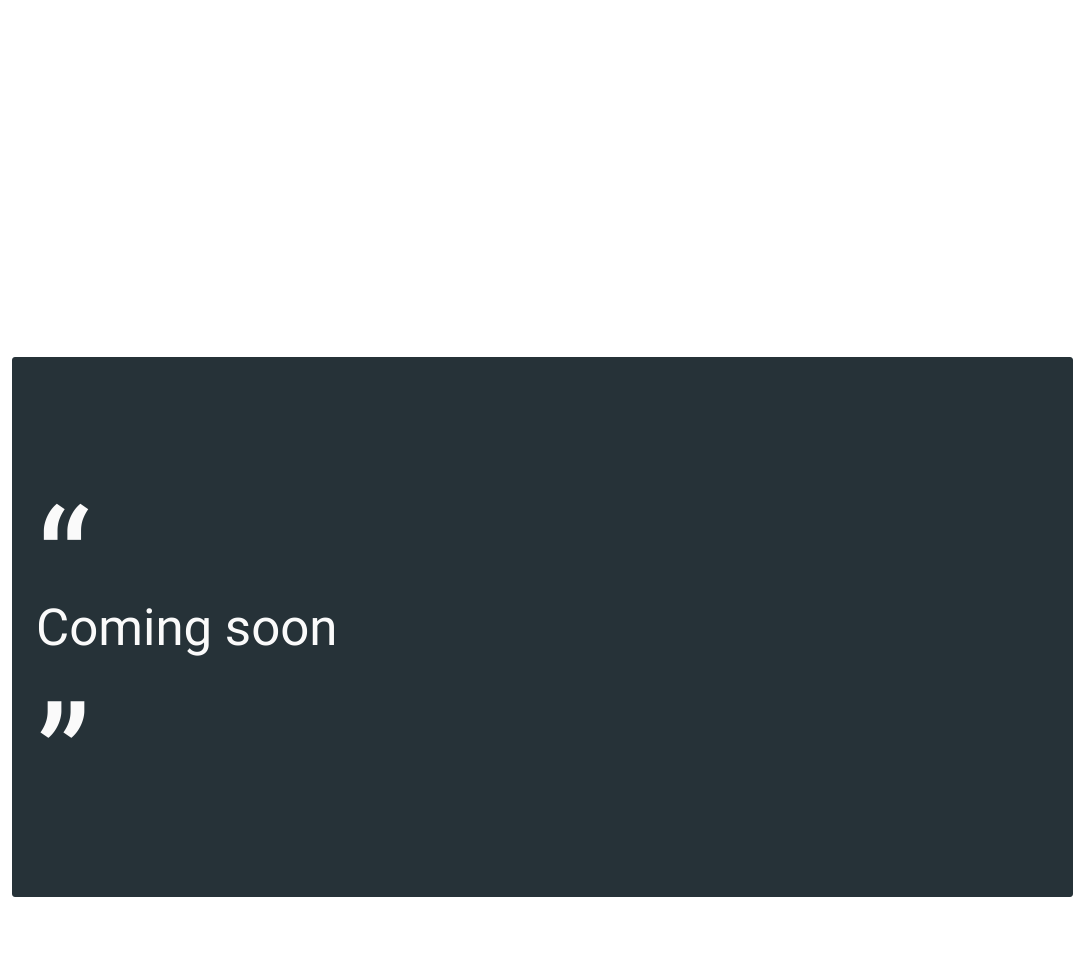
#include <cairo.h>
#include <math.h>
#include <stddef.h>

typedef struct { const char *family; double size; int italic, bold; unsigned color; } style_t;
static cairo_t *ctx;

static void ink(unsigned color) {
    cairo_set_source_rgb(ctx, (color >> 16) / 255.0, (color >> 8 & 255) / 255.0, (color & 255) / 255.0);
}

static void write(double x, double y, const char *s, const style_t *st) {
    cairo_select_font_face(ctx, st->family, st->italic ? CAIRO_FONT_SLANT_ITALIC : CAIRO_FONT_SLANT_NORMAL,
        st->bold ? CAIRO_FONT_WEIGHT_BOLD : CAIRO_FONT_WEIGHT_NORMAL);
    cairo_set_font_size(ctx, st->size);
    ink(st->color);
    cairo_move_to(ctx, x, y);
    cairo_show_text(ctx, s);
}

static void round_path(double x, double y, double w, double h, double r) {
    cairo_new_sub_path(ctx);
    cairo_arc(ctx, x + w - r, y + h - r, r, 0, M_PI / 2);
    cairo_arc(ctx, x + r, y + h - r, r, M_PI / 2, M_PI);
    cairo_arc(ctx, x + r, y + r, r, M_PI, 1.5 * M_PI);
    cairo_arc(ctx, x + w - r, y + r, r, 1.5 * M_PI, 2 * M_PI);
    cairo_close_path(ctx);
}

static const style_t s1 = {"Roboto", 153, 0, 0, 0xfafafa};
static const style_t s2 = {"Roboto", 51, 0, 0, 0xfafafa};

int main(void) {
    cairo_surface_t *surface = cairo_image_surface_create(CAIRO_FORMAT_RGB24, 1084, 971);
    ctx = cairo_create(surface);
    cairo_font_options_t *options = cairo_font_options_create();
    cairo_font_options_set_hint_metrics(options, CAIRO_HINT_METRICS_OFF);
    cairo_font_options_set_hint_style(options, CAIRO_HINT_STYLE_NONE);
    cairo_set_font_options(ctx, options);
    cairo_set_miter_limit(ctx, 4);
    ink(0xffffff);
    cairo_paint(ctx);
    ink(0x263238);
    round_path(12, 357, 1061, 540, 3);
    cairo_fill(ctx);
    write(36, 620, "“", &s1);
    write(36, 645, "Coming soon", &s2);
    write(36, 816, "”", &s1);
    cairo_surface_write_to_png(surface, "screenshot.png");
    cairo_font_options_destroy(options);
    cairo_destroy(ctx);
    cairo_surface_destroy(surface);
    return 0;
}
